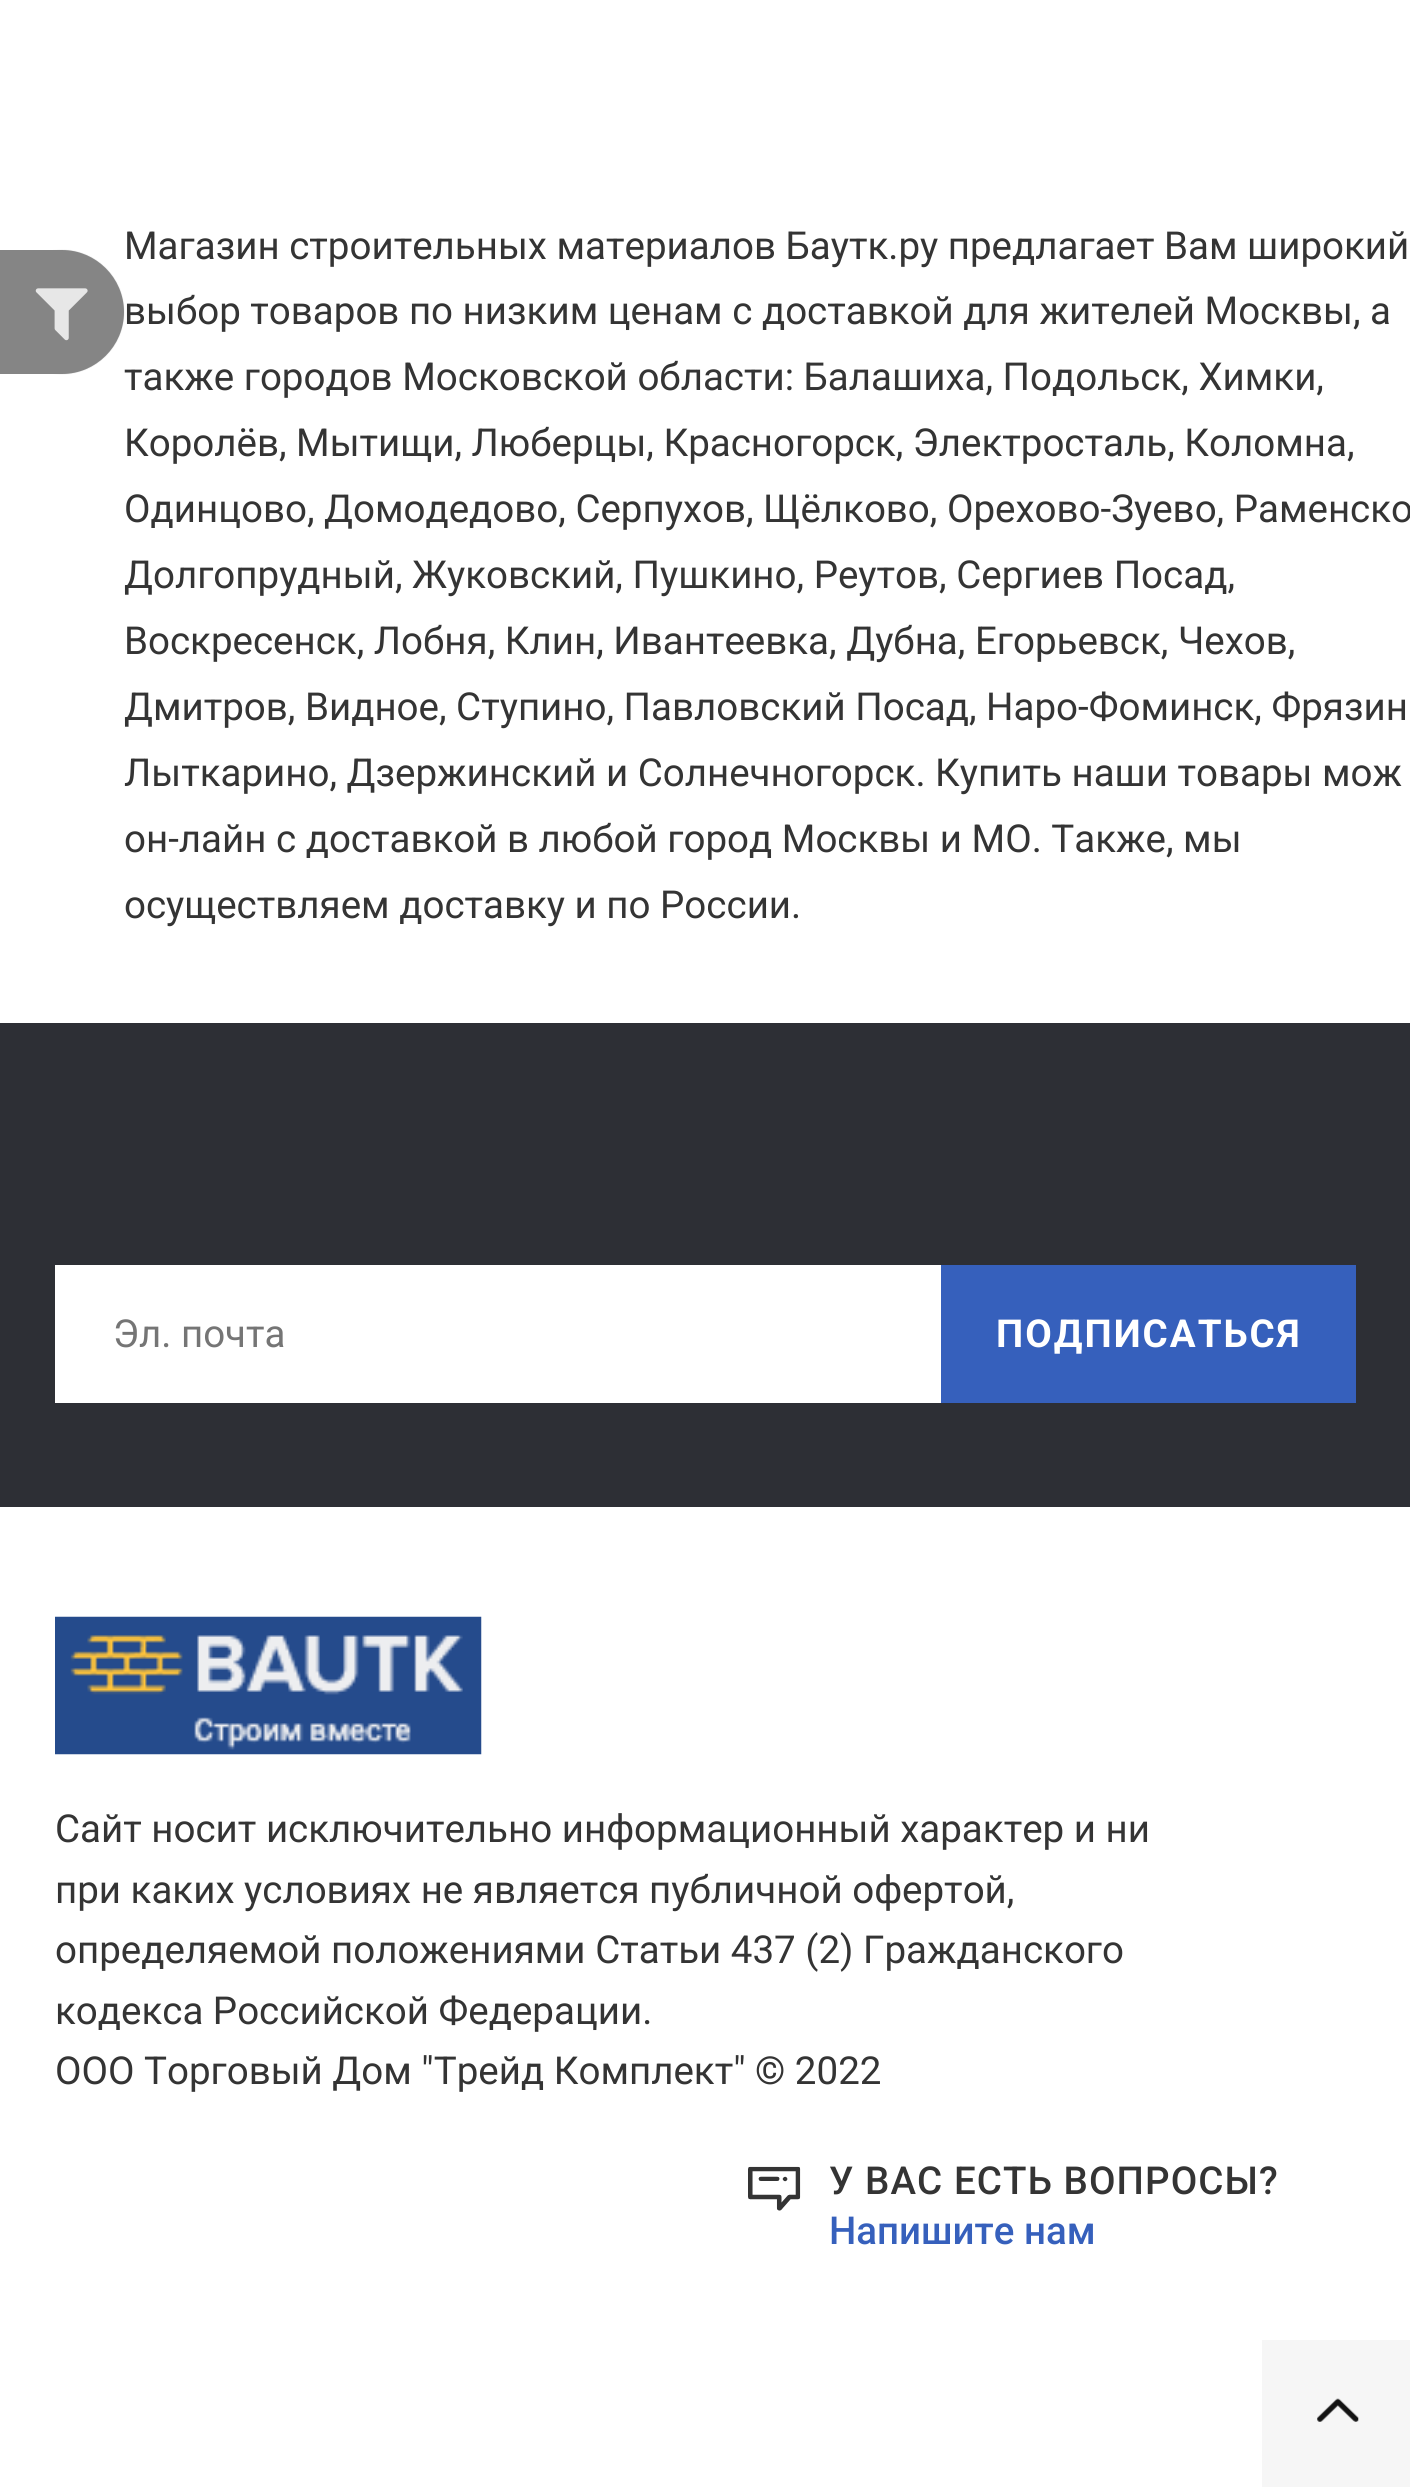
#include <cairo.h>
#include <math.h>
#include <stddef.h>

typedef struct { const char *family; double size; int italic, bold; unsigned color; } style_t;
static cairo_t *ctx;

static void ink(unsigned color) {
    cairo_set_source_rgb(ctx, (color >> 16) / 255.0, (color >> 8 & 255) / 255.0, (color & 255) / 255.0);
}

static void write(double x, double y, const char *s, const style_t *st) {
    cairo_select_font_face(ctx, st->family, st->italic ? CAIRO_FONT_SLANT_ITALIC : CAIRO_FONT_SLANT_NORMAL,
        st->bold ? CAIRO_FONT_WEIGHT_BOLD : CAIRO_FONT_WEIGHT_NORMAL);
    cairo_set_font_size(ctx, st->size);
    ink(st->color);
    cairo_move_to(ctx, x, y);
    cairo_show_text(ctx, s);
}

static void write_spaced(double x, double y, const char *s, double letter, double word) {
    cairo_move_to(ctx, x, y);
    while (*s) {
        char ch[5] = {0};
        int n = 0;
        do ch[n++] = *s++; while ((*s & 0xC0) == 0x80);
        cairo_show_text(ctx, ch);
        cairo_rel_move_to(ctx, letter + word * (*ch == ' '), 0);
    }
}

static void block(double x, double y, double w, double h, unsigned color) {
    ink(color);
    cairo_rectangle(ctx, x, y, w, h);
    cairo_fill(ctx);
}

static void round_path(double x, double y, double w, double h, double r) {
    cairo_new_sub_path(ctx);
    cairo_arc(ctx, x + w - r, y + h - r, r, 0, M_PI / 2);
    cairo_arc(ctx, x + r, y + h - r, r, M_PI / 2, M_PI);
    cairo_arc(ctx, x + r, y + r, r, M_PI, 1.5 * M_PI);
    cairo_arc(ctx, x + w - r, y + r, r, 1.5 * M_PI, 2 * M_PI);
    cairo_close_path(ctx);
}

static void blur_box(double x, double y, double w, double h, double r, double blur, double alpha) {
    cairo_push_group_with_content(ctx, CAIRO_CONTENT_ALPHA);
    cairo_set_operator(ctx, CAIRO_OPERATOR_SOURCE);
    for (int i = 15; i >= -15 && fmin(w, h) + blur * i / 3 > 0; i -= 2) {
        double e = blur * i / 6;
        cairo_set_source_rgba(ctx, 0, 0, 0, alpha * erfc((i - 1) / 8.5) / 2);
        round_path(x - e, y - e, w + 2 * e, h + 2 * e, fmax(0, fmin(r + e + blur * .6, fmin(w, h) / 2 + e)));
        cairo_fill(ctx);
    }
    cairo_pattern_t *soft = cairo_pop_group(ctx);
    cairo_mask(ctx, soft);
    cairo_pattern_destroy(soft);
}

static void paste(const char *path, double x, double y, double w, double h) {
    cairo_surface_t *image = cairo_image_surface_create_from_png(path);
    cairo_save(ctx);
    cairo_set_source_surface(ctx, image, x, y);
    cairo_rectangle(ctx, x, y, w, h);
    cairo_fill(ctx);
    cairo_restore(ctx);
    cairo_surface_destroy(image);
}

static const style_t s1 = {"Roboto", 38.5, 0, 0, 0x343434};
static const style_t s2 = {"Roboto", 38.5, 0, 0, 0x757575};
static const style_t s3 = {"Roboto Medium", 38.5, 0, 0, 0x3660bc};

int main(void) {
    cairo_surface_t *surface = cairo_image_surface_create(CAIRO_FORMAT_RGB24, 1410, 2487);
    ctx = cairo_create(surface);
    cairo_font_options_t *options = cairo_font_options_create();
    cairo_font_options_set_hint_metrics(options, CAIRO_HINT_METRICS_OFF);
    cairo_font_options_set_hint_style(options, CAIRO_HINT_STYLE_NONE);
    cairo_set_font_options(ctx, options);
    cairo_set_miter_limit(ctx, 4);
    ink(0xffffff);
    cairo_paint(ctx);
    ink(0x333333);
    blur_box(0, 250, 124, 124, 62, 0.5, 0.17);
    ink(0x858585);
    cairo_new_path(ctx);
    cairo_move_to(ctx, 0, 250);
    cairo_line_to(ctx, 62, 250);
    cairo_curve_to(ctx, 96, 250, 124, 278, 124, 312);
    cairo_curve_to(ctx, 124, 346, 96, 374, 62, 374);
    cairo_line_to(ctx, 0, 374);
    cairo_close_path(ctx);
    cairo_fill(ctx);
    paste("pic1.png", 35, 288, 53, 53);
    write(124, 259, "Магазин строительных материалов Баутк.ру предлагает Вам широкий", &s1);
    write(124, 324, "выбор товаров по низким ценам с доставкой для жителей Москвы, а", &s1);
    write(124, 390, "также городов Московской области: Балашиха, Подольск, Химки,", &s1);
    write(124, 456, "Королёв, Мытищи, Люберцы, Красногорск, Электросталь, Коломна,", &s1);
    write(124, 522, "Одинцово, Домодедово, Серпухов, Щёлково, Орехово-Зуево, Раменско", &s1);
    write(124, 588, "Долгопрудный, Жуковский, Пушкино, Реутов, Сергиев Посад,", &s1);
    write(124, 654, "Воскресенск, Лобня, Клин, Ивантеевка, Дубна, Егорьевск, Чехов,", &s1);
    write(124, 720, "Дмитров, Видное, Ступино, Павловский Посад, Наро-Фоминск, Фрязин", &s1);
    write(124, 786, "Лыткарино, Дзержинский и Солнечногорск. Купить наши товары мож", &s1);
    write(124, 852, "он-лайн с доставкой в любой город Москвы и МО. Также, мы", &s1);
    write(124, 918, "осуществляем доставку и по России.", &s1);
    block(0, 1023, 1410, 484, 0x2d2f35);
    block(55, 1265, 886, 138, 0xffffff);
    write(113, 1347, "Эл. почта", &s2);
    block(941, 1265, 415, 138, 0x3660bc);
    cairo_select_font_face(ctx, "Roboto", CAIRO_FONT_SLANT_NORMAL, CAIRO_FONT_WEIGHT_BOLD);
    ink(0xffffff);
    write_spaced(996, 1347, "ПОДПИСАТЬСЯ", 2, 0);
    paste("pic2.png", 55, 1616, 427, 139);
    write(55, 1842, "Сайт носит исключительно информационный характер и ни", &s1);
    write(55, 1903, "при каких условиях не является публичной офертой,", &s1);
    write(55, 1963, "определяемой положениями Статьи 437 (2) Гражданского", &s1);
    write(55, 2024, "кодекса Российской Федерации.", &s1);
    write(55, 2084, "ООО Торговый Дом \"Трейд Комплект\" © 2022", &s1);
    paste("pic3.png", 748, 2166, 53, 45);
    cairo_select_font_face(ctx, "Roboto Medium", CAIRO_FONT_SLANT_NORMAL, CAIRO_FONT_WEIGHT_NORMAL);
    write_spaced(829, 2194, "У ВАС ЕСТЬ ВОПРОСЫ?", 1.1, 0);
    write(829, 2244, "Напишите нам", &s3);
    block(1262, 2340, 148, 147, 0xf6f6f6);
    paste("pic4.png", 1317, 2398, 42, 24);
    cairo_surface_write_to_png(surface, "screenshot.png");
    cairo_font_options_destroy(options);
    cairo_destroy(ctx);
    cairo_surface_destroy(surface);
    return 0;
}
